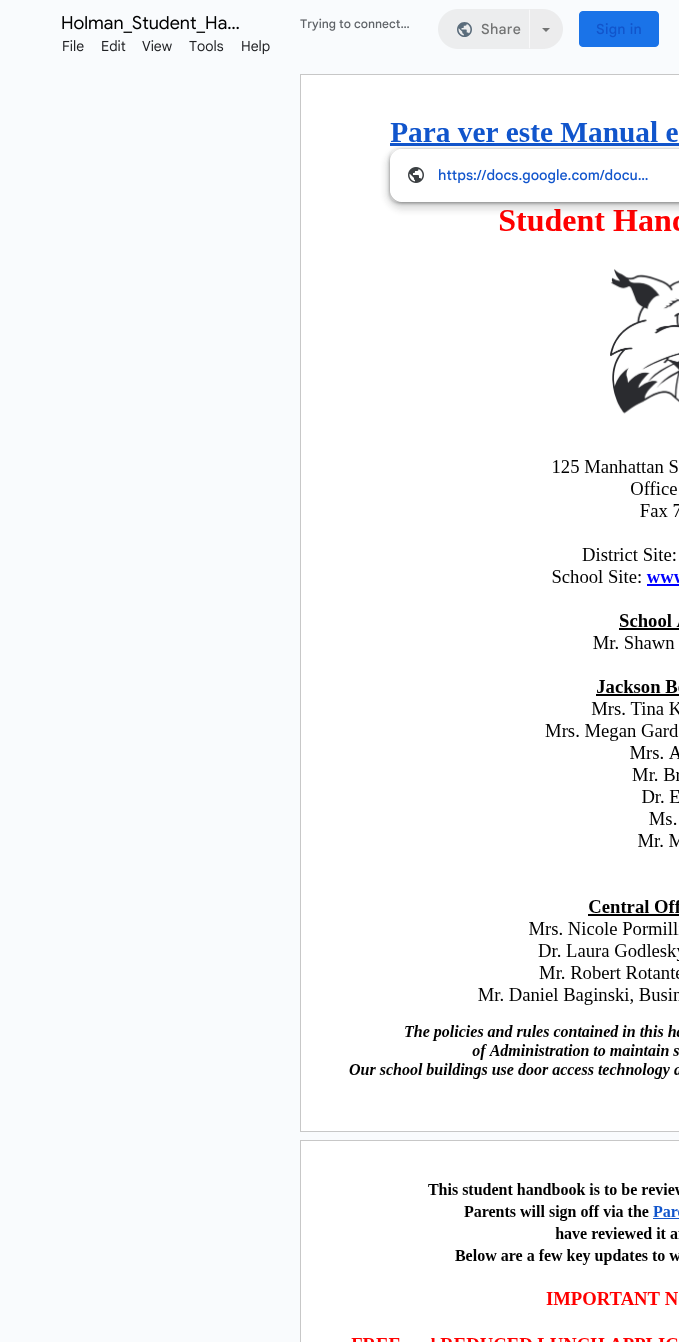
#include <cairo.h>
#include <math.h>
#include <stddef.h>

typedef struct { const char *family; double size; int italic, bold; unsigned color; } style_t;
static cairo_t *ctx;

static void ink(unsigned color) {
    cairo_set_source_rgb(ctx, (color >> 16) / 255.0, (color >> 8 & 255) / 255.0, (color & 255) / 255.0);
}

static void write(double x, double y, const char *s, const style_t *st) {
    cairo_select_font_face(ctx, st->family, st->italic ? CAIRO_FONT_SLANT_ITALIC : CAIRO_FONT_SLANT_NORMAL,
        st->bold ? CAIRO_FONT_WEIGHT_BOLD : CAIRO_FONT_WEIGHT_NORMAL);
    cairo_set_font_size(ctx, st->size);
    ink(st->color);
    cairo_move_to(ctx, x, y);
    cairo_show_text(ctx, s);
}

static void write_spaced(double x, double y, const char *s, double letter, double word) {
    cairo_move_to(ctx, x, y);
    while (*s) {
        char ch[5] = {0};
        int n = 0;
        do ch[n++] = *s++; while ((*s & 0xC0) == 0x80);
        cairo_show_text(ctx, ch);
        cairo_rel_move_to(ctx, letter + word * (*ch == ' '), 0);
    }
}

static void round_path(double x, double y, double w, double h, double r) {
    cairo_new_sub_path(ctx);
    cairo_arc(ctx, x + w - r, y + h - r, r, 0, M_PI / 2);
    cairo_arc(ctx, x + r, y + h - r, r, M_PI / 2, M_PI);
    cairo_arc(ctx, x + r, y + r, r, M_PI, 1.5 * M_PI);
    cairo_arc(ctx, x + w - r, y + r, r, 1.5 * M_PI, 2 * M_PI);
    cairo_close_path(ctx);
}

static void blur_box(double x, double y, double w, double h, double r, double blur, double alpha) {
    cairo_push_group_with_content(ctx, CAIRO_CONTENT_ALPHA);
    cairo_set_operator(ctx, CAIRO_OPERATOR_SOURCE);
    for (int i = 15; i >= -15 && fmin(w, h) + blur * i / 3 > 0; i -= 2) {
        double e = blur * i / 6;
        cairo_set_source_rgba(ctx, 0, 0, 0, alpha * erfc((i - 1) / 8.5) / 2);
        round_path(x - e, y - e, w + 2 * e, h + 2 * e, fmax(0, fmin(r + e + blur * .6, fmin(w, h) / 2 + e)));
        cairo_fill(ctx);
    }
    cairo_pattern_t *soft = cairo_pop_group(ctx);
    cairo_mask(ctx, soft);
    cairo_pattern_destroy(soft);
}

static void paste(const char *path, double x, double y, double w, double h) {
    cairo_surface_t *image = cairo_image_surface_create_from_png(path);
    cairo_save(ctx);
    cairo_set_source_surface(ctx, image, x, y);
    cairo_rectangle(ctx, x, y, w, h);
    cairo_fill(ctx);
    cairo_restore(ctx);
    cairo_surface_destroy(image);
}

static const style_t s1 = {"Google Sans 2", 18, 0, 0, 0x000000};
static const style_t s2 = {"Google Sans Medium", 12, 0, 0, 0x5f6368};
static const style_t s3 = {"Google Sans", 14, 0, 0, 0x202124};
static const style_t s4 = {"Google Sans Medium", 14, 0, 0, 0x1155cc};

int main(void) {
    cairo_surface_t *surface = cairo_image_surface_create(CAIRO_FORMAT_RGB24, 679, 1342);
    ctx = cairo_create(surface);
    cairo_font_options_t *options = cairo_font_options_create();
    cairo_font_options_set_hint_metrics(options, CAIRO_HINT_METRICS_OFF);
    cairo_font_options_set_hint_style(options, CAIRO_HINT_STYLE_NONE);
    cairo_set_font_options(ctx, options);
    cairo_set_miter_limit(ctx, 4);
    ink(0xf9fbfd);
    cairo_paint(ctx);
    write(61, 29, "Holman_Student_Ha…", &s1);
    write(300, 28, "Trying to connect…", &s2);
    ink(0xecedee);
    cairo_new_path(ctx);
    cairo_move_to(ctx, 458, 9);
    cairo_line_to(ctx, 530, 9);
    cairo_line_to(ctx, 530, 49);
    cairo_line_to(ctx, 458, 49);
    cairo_curve_to(ctx, 447, 49, 438, 40, 438, 29);
    cairo_curve_to(ctx, 438, 18, 447, 9, 458, 9);
    cairo_close_path(ctx);
    cairo_fill(ctx);
    paste("pic1.png", 457, 22, 15, 15);
    cairo_set_font_size(ctx, 14);
    ink(0x727373);
    write_spaced(481, 34, "Share", 0.25, 0);
    cairo_set_source_rgba(ctx, 0.894, 0.894, 0.894, 0.62);
    cairo_new_path(ctx);
    cairo_move_to(ctx, 529, 9);
    cairo_line_to(ctx, 543, 9);
    cairo_curve_to(ctx, 554, 9, 563, 18, 563, 29);
    cairo_curve_to(ctx, 563, 40, 554, 49, 543, 49);
    cairo_line_to(ctx, 529, 49);
    cairo_close_path(ctx);
    cairo_fill(ctx);
    ink(0xf8f8f9);
    cairo_new_path(ctx);
    cairo_move_to(ctx, 530, 10);
    cairo_line_to(ctx, 529, 9);
    cairo_line_to(ctx, 529, 49);
    cairo_line_to(ctx, 530, 48);
    cairo_close_path(ctx);
    cairo_fill(ctx);
    ink(0x727373);
    cairo_new_path(ctx);
    cairo_move_to(ctx, 542, 28);
    cairo_line_to(ctx, 550, 28);
    cairo_line_to(ctx, 546, 32);
    cairo_close_path(ctx);
    cairo_fill(ctx);
    ink(0x1a73e8);
    round_path(579, 11, 80, 36, 4);
    cairo_fill(ctx);
    ink(0x1155cc);
    write_spaced(596, 34, "Sign in", 0.25, 0);
    write(62, 51, "File", &s3);
    write(101, 51, "Edit", &s3);
    write(142, 51, "View", &s3);
    write(189, 51, "Tools", &s3);
    write(241, 51, "Help", &s3);
    cairo_rectangle(ctx, 300.5, 74.5, 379, 1057);
    ink(0xc7c7c7);
    cairo_set_line_width(ctx, 1);
    cairo_stroke(ctx);
    paste("pic2.png", 301, 75, 378, 1056);
    cairo_rectangle(ctx, 300.5, 1140.5, 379, 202);
    cairo_stroke(ctx);
    paste("pic3.png", 301, 1141, 378, 201);
    ink(0x3c4043);
    blur_box(389, 149, 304, 55, 9, 1.5, 0.15);
    ink(0xffffff);
    cairo_new_path(ctx);
    cairo_move_to(ctx, 398, 149);
    cairo_line_to(ctx, 679, 149);
    cairo_line_to(ctx, 679, 202);
    cairo_line_to(ctx, 398, 202);
    cairo_curve_to(ctx, 393.5, 202, 390, 198.5, 390, 194);
    cairo_line_to(ctx, 390, 157);
    cairo_curve_to(ctx, 390, 152.5, 393.5, 149, 398, 149);
    cairo_close_path(ctx);
    cairo_fill(ctx);
    paste("pic4.png", 408, 167, 16, 16);
    cairo_save(ctx);
    cairo_set_fill_rule(ctx, CAIRO_FILL_RULE_EVEN_ODD);
    cairo_new_path(ctx);
    cairo_move_to(ctx, 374, 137);
    cairo_line_to(ctx, 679, 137);
    cairo_line_to(ctx, 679, 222);
    cairo_line_to(ctx, 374, 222);
    cairo_close_path(ctx);
    cairo_move_to(ctx, 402, 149);
    cairo_line_to(ctx, 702, 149);
    cairo_curve_to(ctx, 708.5, 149, 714, 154.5, 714, 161);
    cairo_line_to(ctx, 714, 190);
    cairo_curve_to(ctx, 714, 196.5, 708.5, 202, 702, 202);
    cairo_line_to(ctx, 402, 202);
    cairo_curve_to(ctx, 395.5, 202, 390, 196.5, 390, 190);
    cairo_line_to(ctx, 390, 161);
    cairo_curve_to(ctx, 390, 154.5, 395.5, 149, 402, 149);
    cairo_close_path(ctx);
    cairo_clip(ctx);
    ink(0x000000);
    blur_box(387, 150, 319, 59, 15, 4, 0.15);
    cairo_restore(ctx);
    cairo_save(ctx);
    cairo_set_fill_rule(ctx, CAIRO_FILL_RULE_EVEN_ODD);
    cairo_new_path(ctx);
    cairo_move_to(ctx, 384, 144);
    cairo_line_to(ctx, 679, 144);
    cairo_line_to(ctx, 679, 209);
    cairo_line_to(ctx, 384, 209);
    cairo_close_path(ctx);
    cairo_move_to(ctx, 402, 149);
    cairo_line_to(ctx, 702, 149);
    cairo_curve_to(ctx, 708.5, 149, 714, 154.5, 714, 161);
    cairo_line_to(ctx, 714, 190);
    cairo_curve_to(ctx, 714, 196.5, 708.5, 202, 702, 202);
    cairo_line_to(ctx, 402, 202);
    cairo_curve_to(ctx, 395.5, 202, 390, 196.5, 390, 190);
    cairo_line_to(ctx, 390, 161);
    cairo_curve_to(ctx, 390, 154.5, 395.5, 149, 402, 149);
    cairo_close_path(ctx);
    cairo_clip(ctx);
    ink(0x000000);
    blur_box(390, 150, 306, 53, 12, 1.5, 0.3);
    cairo_restore(ctx);
    write(438, 180, "https://docs.google.com/docu…", &s4);
    cairo_surface_write_to_png(surface, "screenshot.png");
    cairo_font_options_destroy(options);
    cairo_destroy(ctx);
    cairo_surface_destroy(surface);
    return 0;
}
